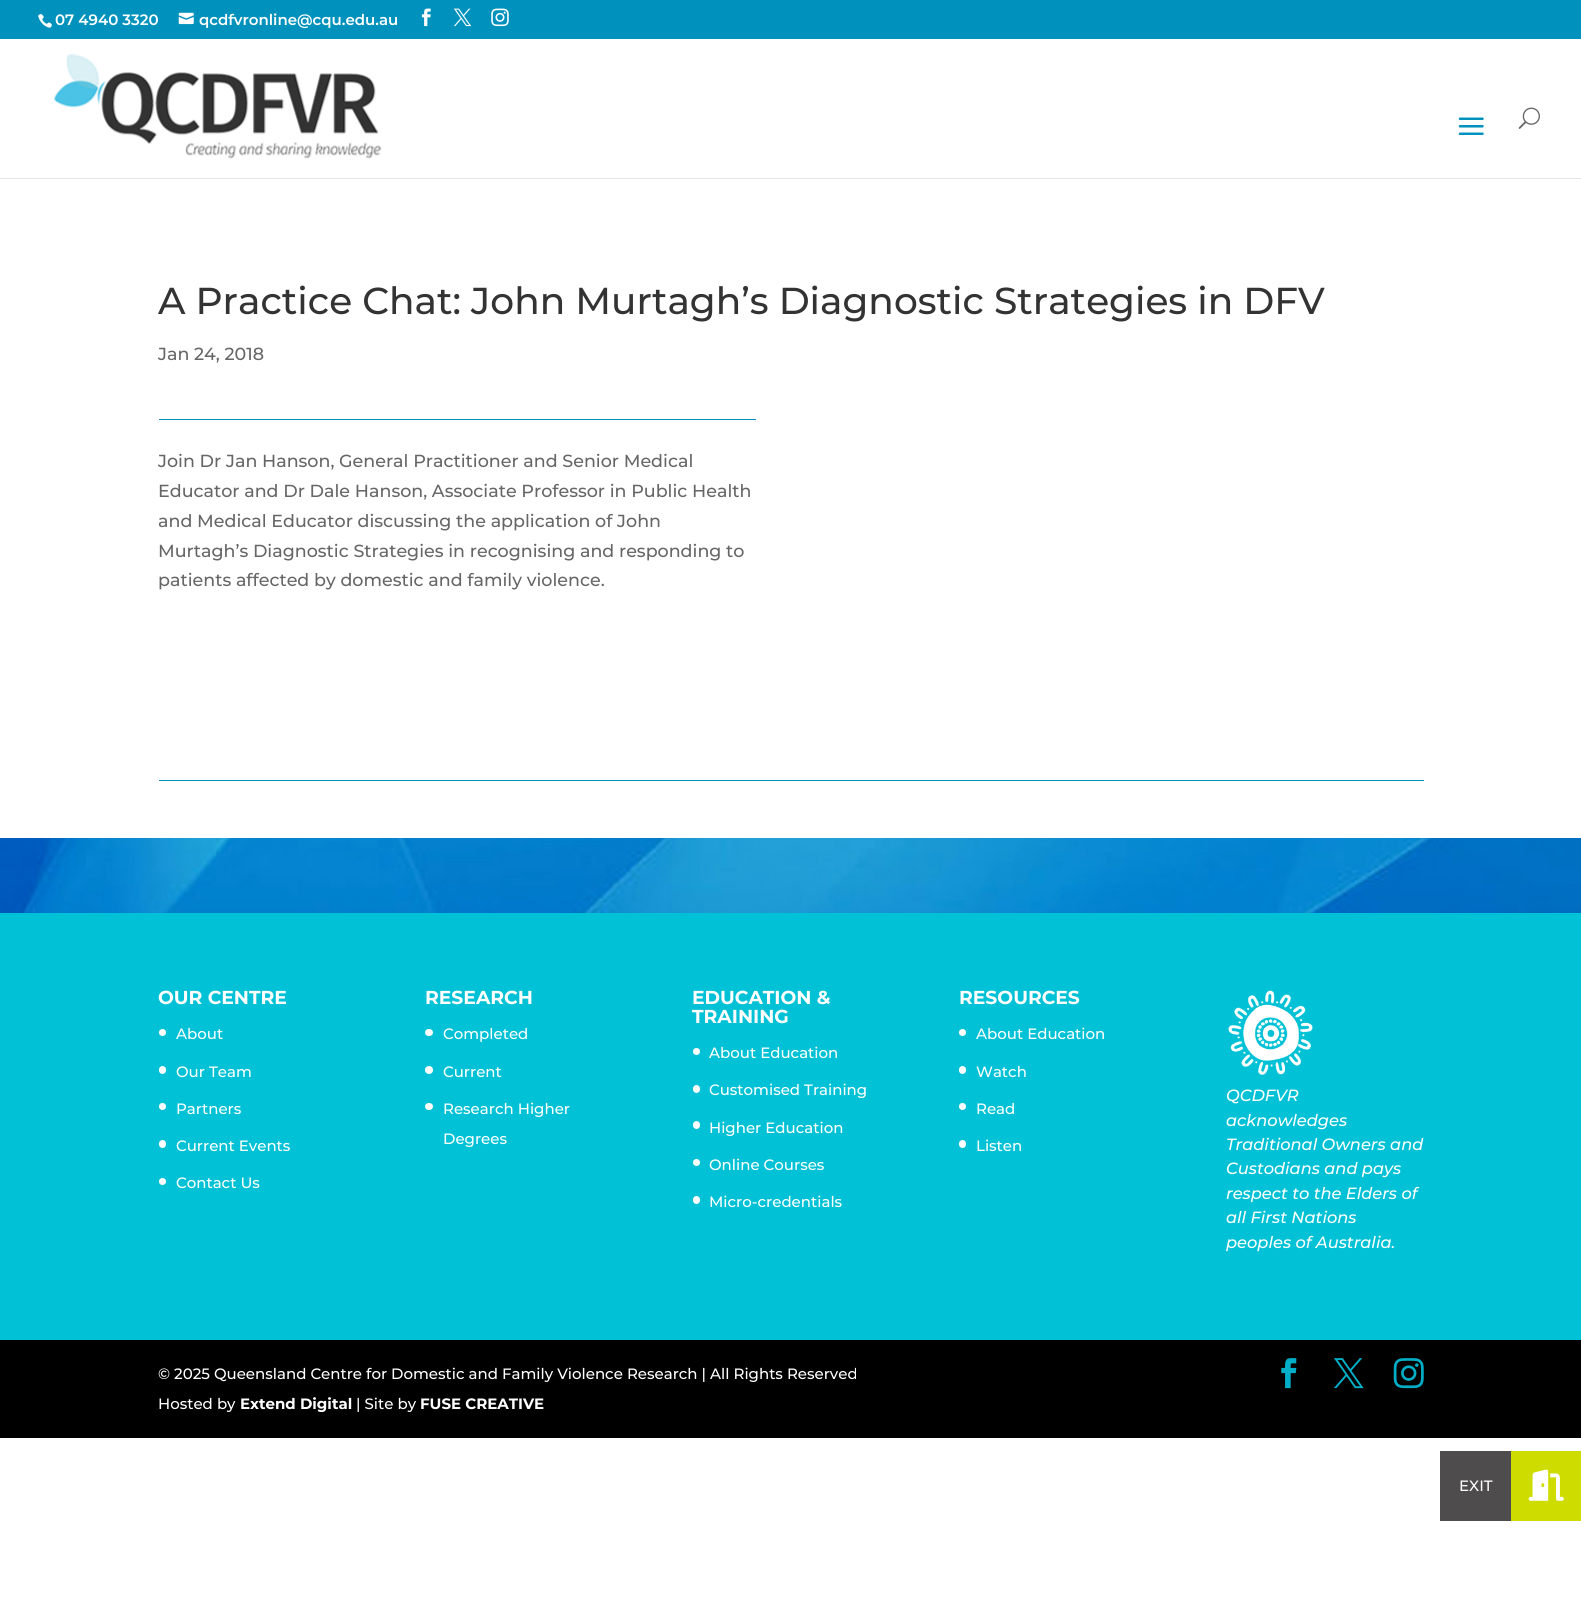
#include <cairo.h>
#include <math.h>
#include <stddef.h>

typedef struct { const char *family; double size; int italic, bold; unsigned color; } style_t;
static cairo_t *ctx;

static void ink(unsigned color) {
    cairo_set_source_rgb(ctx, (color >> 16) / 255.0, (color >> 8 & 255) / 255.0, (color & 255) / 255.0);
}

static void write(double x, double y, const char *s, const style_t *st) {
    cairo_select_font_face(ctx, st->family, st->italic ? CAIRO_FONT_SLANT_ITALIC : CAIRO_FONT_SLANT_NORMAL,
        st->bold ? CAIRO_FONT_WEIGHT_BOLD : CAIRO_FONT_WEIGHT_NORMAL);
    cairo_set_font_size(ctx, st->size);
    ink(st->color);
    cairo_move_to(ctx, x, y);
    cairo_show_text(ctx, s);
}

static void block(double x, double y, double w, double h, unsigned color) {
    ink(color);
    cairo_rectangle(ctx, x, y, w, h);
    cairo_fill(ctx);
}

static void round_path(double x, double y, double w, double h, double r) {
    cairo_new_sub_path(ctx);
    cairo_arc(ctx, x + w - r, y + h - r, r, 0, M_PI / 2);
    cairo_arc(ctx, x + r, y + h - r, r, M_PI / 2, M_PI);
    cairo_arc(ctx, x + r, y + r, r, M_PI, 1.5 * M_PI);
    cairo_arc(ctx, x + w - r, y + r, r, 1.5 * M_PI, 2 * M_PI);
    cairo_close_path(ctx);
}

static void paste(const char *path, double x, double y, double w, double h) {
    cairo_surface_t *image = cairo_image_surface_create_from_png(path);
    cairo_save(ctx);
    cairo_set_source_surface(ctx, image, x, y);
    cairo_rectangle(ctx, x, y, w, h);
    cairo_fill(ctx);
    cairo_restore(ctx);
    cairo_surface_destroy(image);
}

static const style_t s1 = {"Montserrat SemiBold", 15, 0, 0, 0xffffff};
static const style_t s2 = {"Montserrat Medium", 37.5, 0, 0, 0x333333};
static const style_t s3 = {"Montserrat Medium", 17.5, 0, 0, 0x666666};
static const style_t s4 = {"Montserrat", 18.75, 0, 1, 0xffffff};
static const style_t s5 = {"Montserrat Medium", 15, 0, 0, 0xffffff};
static const style_t s6 = {"Montserrat Medium", 16.25, 1, 0, 0xffffff};
static const style_t s7 = {"Montserrat", 15, 0, 1, 0xffffff};

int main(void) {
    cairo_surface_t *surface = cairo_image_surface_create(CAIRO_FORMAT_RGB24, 1581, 1601);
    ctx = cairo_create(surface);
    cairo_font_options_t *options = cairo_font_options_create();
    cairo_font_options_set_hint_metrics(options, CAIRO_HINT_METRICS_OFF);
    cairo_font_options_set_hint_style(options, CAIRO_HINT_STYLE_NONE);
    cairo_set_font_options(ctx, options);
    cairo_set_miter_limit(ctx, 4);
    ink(0xffffff);
    cairo_paint(ctx);
    paste("pic1.png", 0, 838, 1581, 75);
    block(0, 0, 1581, 39, 0x0092bc);
    paste("pic2.png", 38, 14, 14, 14);
    write(55, 25, "07 4940 3320", &s1);
    paste("pic3.png", 178, 12, 16, 13);
    write(199, 25, "qcdfvronline@cqu.edu.au", &s1);
    paste("pic4.png", 421, 8, 10, 19);
    paste("pic5.png", 453, 8, 18, 19);
    paste("pic6.png", 491, 8, 18, 19);
    block(0, 178, 1581, 1, 0xe6e6e6);
    paste("pic7.png", 54, 53, 328, 106);
    paste("pic8.png", 1458, 117, 26, 18);
    paste("pic9.png", 1518, 107, 22, 22);
    write(158, 314, "A Practice Chat: John Murtagh’s Diagnostic Strategies in DFV", &s2);
    write(158, 360, "Jan 24, 2018", &s3);
    block(159, 780, 1265, 1, 0x0092bc);
    block(159, 419, 597, 1, 0x0092bc);
    write(158, 467, "Join Dr Jan Hanson, General Practitioner and Senior Medical", &s3);
    write(158, 497, "Educator and Dr Dale Hanson, Associate Professor in Public Health", &s3);
    write(158, 527, "and Medical Educator discussing the application of John", &s3);
    write(158, 557, "Murtagh’s Diagnostic Strategies in recognising and responding to", &s3);
    write(158, 586, "patients affected by domestic and family violence.", &s3);
    block(0, 913, 1581, 427, 0x00c1d5);
    write(158, 1004, "OUR CENTRE", &s4);
    cairo_new_path(ctx);
    cairo_arc(ctx, 162.5, 1032.5, 3.5, 0, 2 * M_PI);
    cairo_fill(ctx);
    write(176, 1039, "About", &s5);
    round_path(159, 1066, 7, 8, 3.5);
    cairo_fill(ctx);
    write(176, 1077, "Our Team", &s5);
    cairo_new_path(ctx);
    cairo_arc(ctx, 162.5, 1106.5, 3.5, 0, 2 * M_PI);
    cairo_fill(ctx);
    write(176, 1114, "Partners", &s5);
    round_path(159, 1140, 7, 8, 3.5);
    cairo_fill(ctx);
    write(176, 1151, "Current Events", &s5);
    cairo_new_path(ctx);
    cairo_arc(ctx, 162.5, 1181.5, 3.5, 0, 2 * M_PI);
    cairo_fill(ctx);
    write(176, 1188, "Contact Us", &s5);
    write(425, 1004, "RESEARCH", &s4);
    round_path(425, 1029, 8, 7, 3.5);
    cairo_fill(ctx);
    write(443, 1039, "Completed", &s5);
    cairo_new_path(ctx);
    cairo_arc(ctx, 429, 1070, 4, 0, 2 * M_PI);
    cairo_fill(ctx);
    write(443, 1077, "Current", &s5);
    round_path(425, 1103, 8, 7, 3.5);
    cairo_fill(ctx);
    write(443, 1114, "Research Higher", &s5);
    write(443, 1144, "Degrees", &s5);
    write(692, 1004, "EDUCATION &", &s4);
    write(692, 1023, "TRAINING", &s4);
    cairo_new_path(ctx);
    cairo_arc(ctx, 696.5, 1051.5, 3.5, 0, 2 * M_PI);
    cairo_fill(ctx);
    write(709, 1058, "About Education", &s5);
    round_path(693, 1085, 7, 8, 3.5);
    cairo_fill(ctx);
    write(709, 1095, "Customised Training", &s5);
    round_path(693, 1121, 7, 8, 3.5);
    cairo_fill(ctx);
    write(709, 1133, "Higher Education", &s5);
    cairo_new_path(ctx);
    cairo_arc(ctx, 696.5, 1162.5, 3.5, 0, 2 * M_PI);
    cairo_fill(ctx);
    write(709, 1170, "Online Courses", &s5);
    round_path(693, 1196, 7, 8, 3.5);
    cairo_fill(ctx);
    write(709, 1207, "Micro-credentials", &s5);
    write(959, 1004, "RESOURCES", &s4);
    cairo_new_path(ctx);
    cairo_arc(ctx, 962.5, 1032.5, 3.5, 0, 2 * M_PI);
    cairo_fill(ctx);
    write(976, 1039, "About Education", &s5);
    round_path(959, 1066, 7, 8, 3.5);
    cairo_fill(ctx);
    write(976, 1077, "Watch", &s5);
    cairo_new_path(ctx);
    cairo_arc(ctx, 962.5, 1106.5, 3.5, 0, 2 * M_PI);
    cairo_fill(ctx);
    write(976, 1114, "Read", &s5);
    round_path(959, 1140, 7, 8, 3.5);
    cairo_fill(ctx);
    write(976, 1151, "Listen", &s5);
    paste("pic10.png", 1228, 990, 85, 85);
    write(1226, 1101, "QCDFVR", &s6);
    write(1226, 1126, "acknowledges", &s6);
    write(1226, 1150, "Traditional Owners and", &s6);
    write(1226, 1174, "Custodians and pays", &s6);
    write(1226, 1199, "respect to the Elders of", &s6);
    write(1226, 1223, "all First Nations", &s6);
    write(1226, 1248, "peoples of Australia.", &s6);
    block(0, 1340, 1581, 98, 0x000000);
    write(158, 1379, "© 2025 Queensland Centre for Domestic and Family Violence Research | All Rights Reserved", &s5);
    write(158, 1409, "Hosted by", &s5);
    write(240, 1409, "Extend Digital", &s7);
    write(356, 1409, "| Site by", &s5);
    write(420, 1409, "FUSE CREATIVE", &s7);
    paste("pic11.png", 1281, 1358, 16, 31);
    paste("pic12.png", 1334, 1358, 30, 31);
    paste("pic13.png", 1393, 1358, 31, 31);
    block(1511, 1451, 70, 70, 0xcedc00);
    block(1440, 1451, 71, 70, 0x4e4c4c);
    write(1459, 1491, "EXIT", &s5);
    paste("pic14.png", 1528, 1469, 36, 32);
    cairo_surface_write_to_png(surface, "screenshot.png");
    cairo_font_options_destroy(options);
    cairo_destroy(ctx);
    cairo_surface_destroy(surface);
    return 0;
}
